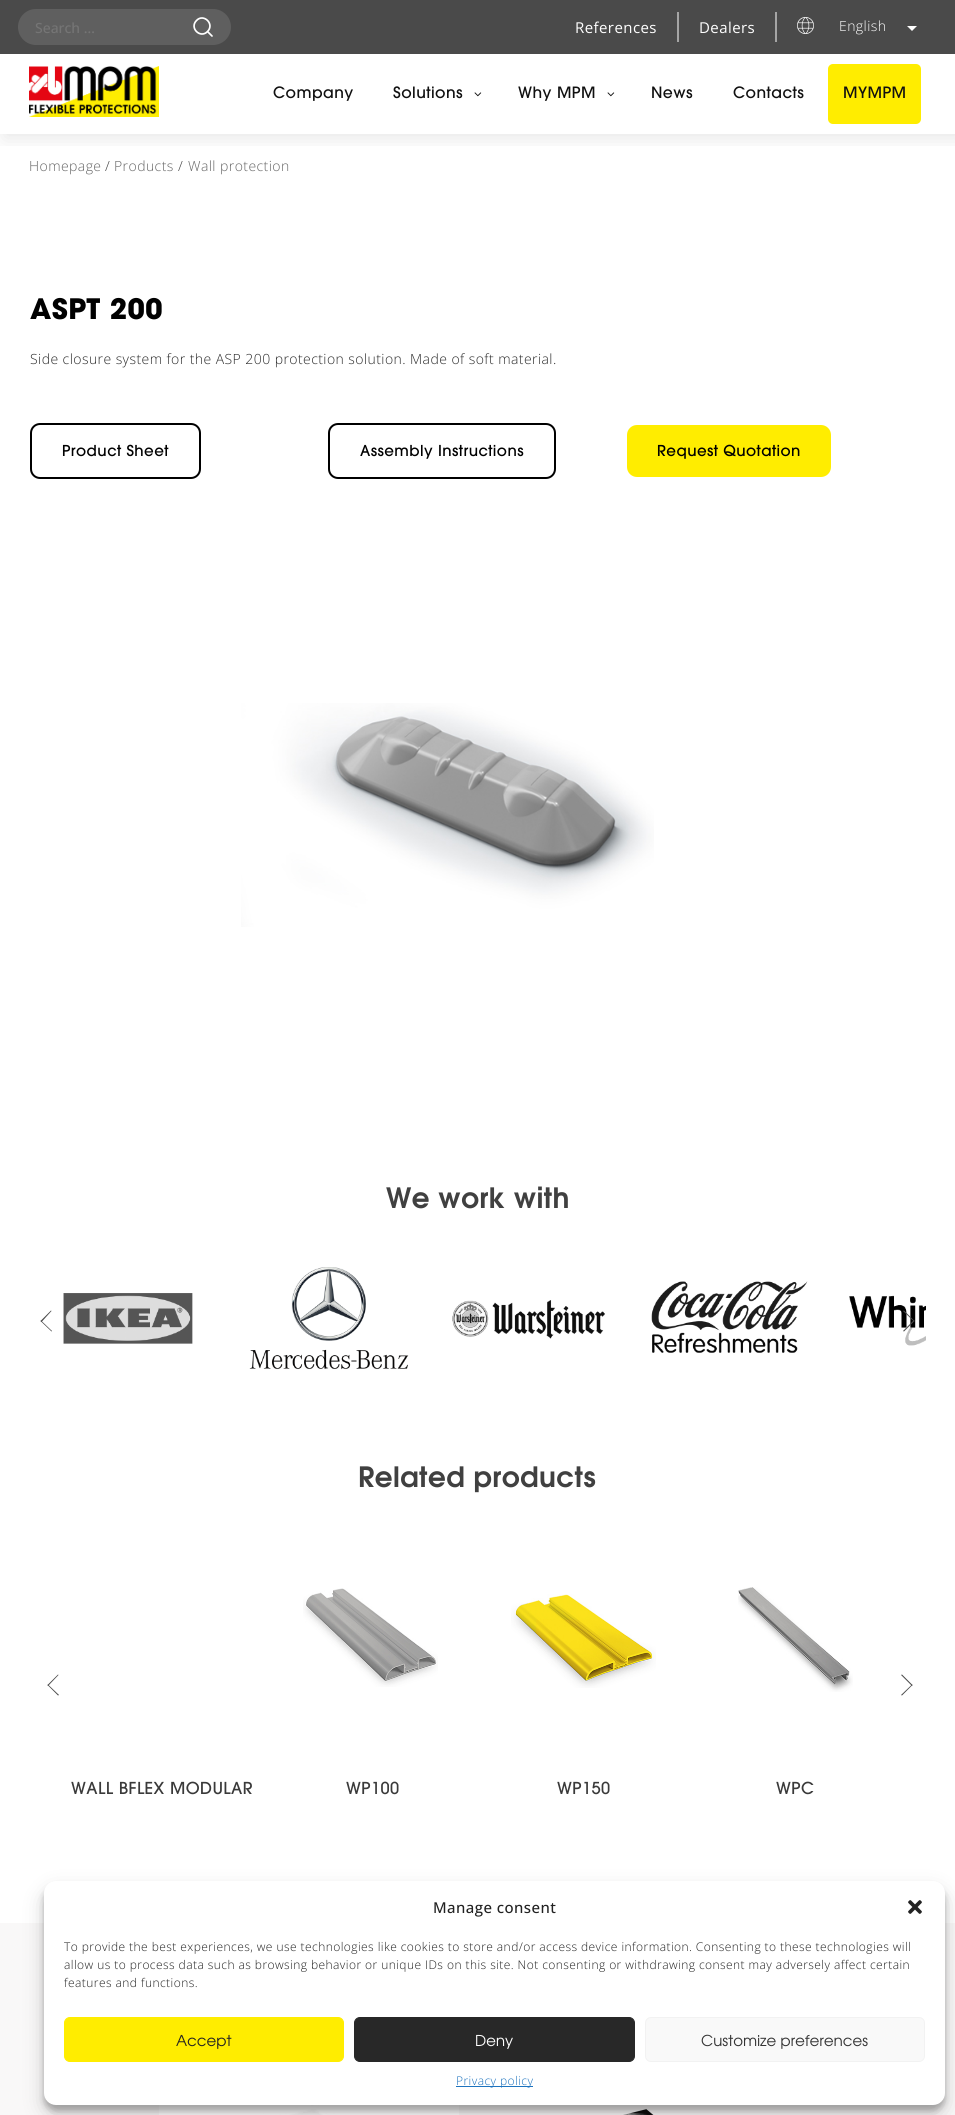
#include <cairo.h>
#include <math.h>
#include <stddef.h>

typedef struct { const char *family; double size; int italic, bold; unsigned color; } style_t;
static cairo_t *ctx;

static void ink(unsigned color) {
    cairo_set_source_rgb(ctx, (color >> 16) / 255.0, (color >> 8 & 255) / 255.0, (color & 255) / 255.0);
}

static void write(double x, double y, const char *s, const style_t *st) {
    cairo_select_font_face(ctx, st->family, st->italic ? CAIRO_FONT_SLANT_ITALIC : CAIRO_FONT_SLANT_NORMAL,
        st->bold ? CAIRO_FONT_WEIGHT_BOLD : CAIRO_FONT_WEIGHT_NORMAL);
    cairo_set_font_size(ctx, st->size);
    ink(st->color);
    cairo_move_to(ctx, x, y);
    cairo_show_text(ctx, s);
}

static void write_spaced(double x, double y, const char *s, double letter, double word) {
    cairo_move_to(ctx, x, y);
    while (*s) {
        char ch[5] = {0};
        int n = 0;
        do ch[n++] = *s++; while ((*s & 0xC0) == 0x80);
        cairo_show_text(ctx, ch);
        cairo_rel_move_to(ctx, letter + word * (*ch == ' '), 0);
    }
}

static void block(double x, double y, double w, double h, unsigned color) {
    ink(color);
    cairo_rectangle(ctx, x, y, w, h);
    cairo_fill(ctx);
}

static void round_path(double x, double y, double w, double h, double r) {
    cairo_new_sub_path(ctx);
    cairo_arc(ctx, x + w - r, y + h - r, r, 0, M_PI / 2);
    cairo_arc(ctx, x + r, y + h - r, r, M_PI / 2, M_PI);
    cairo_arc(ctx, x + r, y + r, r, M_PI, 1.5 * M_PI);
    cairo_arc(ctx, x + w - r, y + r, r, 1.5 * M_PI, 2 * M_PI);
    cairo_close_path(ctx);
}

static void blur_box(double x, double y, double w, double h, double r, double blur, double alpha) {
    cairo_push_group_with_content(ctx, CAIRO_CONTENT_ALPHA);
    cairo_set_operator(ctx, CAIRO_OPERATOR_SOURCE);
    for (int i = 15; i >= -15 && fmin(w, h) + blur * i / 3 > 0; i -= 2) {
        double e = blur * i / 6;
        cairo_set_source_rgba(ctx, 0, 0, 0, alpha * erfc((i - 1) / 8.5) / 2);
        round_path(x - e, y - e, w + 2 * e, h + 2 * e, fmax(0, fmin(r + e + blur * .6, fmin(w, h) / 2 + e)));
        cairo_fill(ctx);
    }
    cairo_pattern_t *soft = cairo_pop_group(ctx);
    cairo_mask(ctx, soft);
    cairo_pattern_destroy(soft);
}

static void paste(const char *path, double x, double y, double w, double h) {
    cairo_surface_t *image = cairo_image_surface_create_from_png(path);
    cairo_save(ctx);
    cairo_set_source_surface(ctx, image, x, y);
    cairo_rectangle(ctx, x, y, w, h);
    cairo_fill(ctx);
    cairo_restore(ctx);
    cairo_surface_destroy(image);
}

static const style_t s1 = {"Open Sans Medium", 14, 0, 0, 0x757575};

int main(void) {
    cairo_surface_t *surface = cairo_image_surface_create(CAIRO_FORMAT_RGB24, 955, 2115);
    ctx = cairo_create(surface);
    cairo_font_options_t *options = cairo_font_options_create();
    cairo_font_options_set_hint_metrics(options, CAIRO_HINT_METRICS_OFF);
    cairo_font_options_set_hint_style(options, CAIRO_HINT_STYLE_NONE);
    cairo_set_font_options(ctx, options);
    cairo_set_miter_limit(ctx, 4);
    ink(0xffffff);
    cairo_paint(ctx);
    cairo_save(ctx);
    cairo_rectangle(ctx, 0, 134, 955, 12);
    cairo_clip(ctx);
    ink(0x000000);
    blur_box(4, 58, 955, 80, 0, 10, 0.1);
    cairo_restore(ctx);
    block(0, 0, 955, 54, 0x4a4a4a);
    ink(0x5f5f5f);
    round_path(18, 9, 213, 36, 18);
    cairo_fill(ctx);
    write(35, 33, "Search …", &s1);
    cairo_new_path(ctx);
    cairo_move_to(ctx, 212, 36);
    cairo_line_to(ctx, 207.5, 31.5);
    cairo_move_to(ctx, 207.5, 31.5);
    cairo_curve_to(ctx, 215, 24, 203.5, 13, 196.5, 20.5);
    cairo_curve_to(ctx, 189, 28, 200.5, 39, 207.5, 31.5);
    cairo_close_path(ctx);
    ink(0xffffff);
    cairo_set_line_width(ctx, 1.7);
    cairo_set_line_cap(ctx, CAIRO_LINE_CAP_ROUND);
    cairo_set_line_join(ctx, CAIRO_LINE_JOIN_ROUND);
    cairo_stroke(ctx);
    cairo_select_font_face(ctx, "Open Sans", CAIRO_FONT_SLANT_NORMAL, CAIRO_FONT_WEIGHT_NORMAL);
    cairo_set_font_size(ctx, 15);
    write_spaced(575, 33, "References", 0.43, 0);
    block(677, 12, 2, 30, 0xa5a5a5);
    ink(0xffffff);
    write_spaced(699, 33, "Dealers", 0.43, 0);
    block(775, 12, 2, 30, 0xa5a5a5);
    paste("pic1.png", 797, 17, 17, 17);
    cairo_select_font_face(ctx, "Open Sans Light", CAIRO_FONT_SLANT_NORMAL, CAIRO_FONT_WEIGHT_NORMAL);
    cairo_set_font_size(ctx, 14);
    ink(0xffffff);
    write_spaced(839, 31, "English", 0.43, 0);
    cairo_new_path(ctx);
    cairo_move_to(ctx, 907, 26);
    cairo_line_to(ctx, 917, 26);
    cairo_line_to(ctx, 912, 31);
    cairo_close_path(ctx);
    cairo_fill(ctx);
    paste("pic2.png", 29, 66, 130, 51);
    cairo_select_font_face(ctx, "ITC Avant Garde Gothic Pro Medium", CAIRO_FONT_SLANT_NORMAL, CAIRO_FONT_WEIGHT_NORMAL);
    cairo_set_font_size(ctx, 15.5);
    ink(0x101010);
    write_spaced(273, 98, "Company", 0.43, 0);
    write_spaced(393, 98, "Solutions", 0.43, 0);
    paste("pic3.png", 474, 92, 8, 5);
    write_spaced(518, 98, "Why MPM", 0.43, 0);
    paste("pic3.png", 607, 92, 8, 5);
    write_spaced(651, 98, "News", 0.43, 0);
    write_spaced(733, 98, "Contacts", 0.43, 0);
    ink(0xffed00);
    round_path(828, 64, 93, 60, 5);
    cairo_fill(ctx);
    ink(0x101010);
    write_spaced(843, 98, "MYMPM", 0.43, 0);
    cairo_select_font_face(ctx, "Open Sans Light", CAIRO_FONT_SLANT_NORMAL, CAIRO_FONT_WEIGHT_NORMAL);
    cairo_set_font_size(ctx, 14);
    ink(0x666666);
    write_spaced(29, 171, "Homepage", 0.43, 0);
    ink(0x404040);
    write_spaced(105, 171, "/", 0.43, 0);
    ink(0x666666);
    write_spaced(114, 171, "Products", 0.43, 0);
    ink(0x404040);
    write_spaced(178, 171, "/", 0.43, 0);
    ink(0x666666);
    write_spaced(188, 171, "Wall protection", 0.43, 0);
    cairo_select_font_face(ctx, "ITC Avant Garde Gothic Pro", CAIRO_FONT_SLANT_NORMAL, CAIRO_FONT_WEIGHT_BOLD);
    cairo_set_font_size(ctx, 28);
    ink(0x000000);
    write_spaced(30, 319, "ASPT 200", 0.43, 0);
    cairo_select_font_face(ctx, "Open Sans Light", CAIRO_FONT_SLANT_NORMAL, CAIRO_FONT_WEIGHT_NORMAL);
    cairo_set_font_size(ctx, 14);
    ink(0x2b2b2b);
    write_spaced(30, 364, "Side closure system for the ASP 200 protection solution. Made of soft material.", 0.43, 0);
    round_path(31, 424, 169, 54, 9);
    ink(0x000000);
    cairo_set_line_width(ctx, 2);
    cairo_set_line_cap(ctx, CAIRO_LINE_CAP_BUTT);
    cairo_set_line_join(ctx, CAIRO_LINE_JOIN_MITER);
    cairo_stroke(ctx);
    cairo_select_font_face(ctx, "ITC Avant Garde Gothic Pro Medium", CAIRO_FONT_SLANT_NORMAL, CAIRO_FONT_WEIGHT_NORMAL);
    cairo_set_font_size(ctx, 15);
    write_spaced(62, 456, "Product Sheet", 0.43, 0);
    round_path(329, 424, 226, 54, 9);
    cairo_stroke(ctx);
    write_spaced(360, 456, "Assembly Instructions", 0.43, 0);
    ink(0xffed00);
    round_path(627, 425, 204, 52, 10);
    cairo_fill(ctx);
    ink(0x000000);
    write_spaced(657, 456, "Request Quotation", 0.43, 0);
    paste("pic4.png", 241, 703, 413, 224);
    paste("pic5.png", 386, 1186, 182, 23);
    paste("pic6.png", 63, 1293, 130, 51);
    paste("pic7.png", 249, 1267, 160, 103);
    paste("pic8.png", 452, 1300, 153, 39);
    paste("pic9.png", 651, 1281, 157, 72);
    paste("pic10.png", 849, 1295, 77, 51);
    ink(0x4a4a4a);
    cairo_new_path(ctx);
    cairo_move_to(ctx, 51.5, 1331.5);
    cairo_line_to(ctx, 40.5, 1321);
    cairo_line_to(ctx, 41, 1320.5);
    cairo_line_to(ctx, 52, 1331);
    cairo_close_path(ctx);
    cairo_fill(ctx);
    cairo_new_path(ctx);
    cairo_move_to(ctx, 41.5, 1322);
    cairo_line_to(ctx, 40.5, 1321);
    cairo_line_to(ctx, 51, 1310.5);
    cairo_line_to(ctx, 51.5, 1311);
    cairo_close_path(ctx);
    cairo_fill(ctx);
    cairo_new_path(ctx);
    cairo_move_to(ctx, 904, 1310.5);
    cairo_line_to(ctx, 914.5, 1321);
    cairo_line_to(ctx, 914, 1321.5);
    cairo_line_to(ctx, 903, 1311);
    cairo_close_path(ctx);
    cairo_fill(ctx);
    cairo_new_path(ctx);
    cairo_move_to(ctx, 914, 1320);
    cairo_line_to(ctx, 914.5, 1321);
    cairo_line_to(ctx, 904, 1331.5);
    cairo_line_to(ctx, 903, 1331);
    cairo_close_path(ctx);
    cairo_fill(ctx);
    paste("pic11.png", 359, 1466, 237, 27);
    cairo_new_path(ctx);
    cairo_move_to(ctx, 58, 1695.5);
    cairo_line_to(ctx, 47.5, 1685);
    cairo_line_to(ctx, 48, 1684.5);
    cairo_line_to(ctx, 59, 1695);
    cairo_close_path(ctx);
    cairo_fill(ctx);
    cairo_new_path(ctx);
    cairo_move_to(ctx, 48, 1686);
    cairo_line_to(ctx, 47.5, 1685);
    cairo_line_to(ctx, 58, 1674.5);
    cairo_line_to(ctx, 58.5, 1675);
    cairo_close_path(ctx);
    cairo_fill(ctx);
    cairo_new_path(ctx);
    cairo_move_to(ctx, 902, 1674.5);
    cairo_line_to(ctx, 912.5, 1685);
    cairo_line_to(ctx, 912, 1686);
    cairo_line_to(ctx, 901, 1675);
    cairo_close_path(ctx);
    cairo_fill(ctx);
    cairo_new_path(ctx);
    cairo_move_to(ctx, 912, 1684.5);
    cairo_line_to(ctx, 912.5, 1685);
    cairo_line_to(ctx, 902, 1695.5);
    cairo_line_to(ctx, 901, 1695);
    cairo_close_path(ctx);
    cairo_fill(ctx);
    cairo_set_font_size(ctx, 16.4);
    ink(0x3a3a3a);
    write_spaced(71, 1794, "WALL BFLEX MODULAR", 0.43, 0);
    paste("pic12.png", 303, 1588, 135, 99);
    write_spaced(346, 1794, "WP100", 0.43, 0);
    paste("pic13.png", 511, 1594, 145, 94);
    write_spaced(557, 1794, "WP150", 0.43, 0);
    paste("pic14.png", 738, 1587, 115, 105);
    write_spaced(776, 1794, "WPC", 0.43, 0);
    block(0, 1923, 955, 192, 0xf9f8f8);
    paste("pic15.png", 159, 2105, 300, 10);
    paste("pic16.png", 623, 2109, 31, 6);
    ink(0x000000);
    blur_box(44, 1887, 901, 224, 12, 3, 0.23);
    blur_box(44, 1891, 901, 224, 12, 10, 0.19);
    ink(0xffffff);
    round_path(44, 1881, 901, 224, 12);
    cairo_fill(ctx);
    cairo_select_font_face(ctx, "Open Sans Medium", CAIRO_FONT_SLANT_NORMAL, CAIRO_FONT_WEIGHT_NORMAL);
    cairo_set_font_size(ctx, 15);
    ink(0x222222);
    write_spaced(433, 1913, "Manage consent", 0.43, 0);
    paste("pic17.png", 908, 1900, 14, 14);
    cairo_select_font_face(ctx, "Open Sans Light", CAIRO_FONT_SLANT_NORMAL, CAIRO_FONT_WEIGHT_NORMAL);
    cairo_set_font_size(ctx, 12);
    write_spaced(64, 1951, "To provide the best experiences, we use technologies like cookies to store and/or access device information. Consenting to these technologies will", 0.43, 0);
    write_spaced(64, 1969, "allow us to process data such as browsing behavior or unique IDs on this site. Not consenting or withdrawing consent may adversely affect certain", 0.43, 0);
    write_spaced(64, 1987, "features and functions.", 0.43, 0);
    ink(0xffed00);
    round_path(64.5, 2017.5, 279, 44, 5.5);
    cairo_fill_preserve(ctx);
    cairo_set_line_width(ctx, 1);
    cairo_stroke(ctx);
    paste("pic18.png", 176, 2034, 56, 15);
    ink(0x282828);
    round_path(354.5, 2017.5, 280, 44, 5.5);
    cairo_fill_preserve(ctx);
    cairo_stroke(ctx);
    paste("pic19.png", 476, 2034, 37, 15);
    ink(0xf9f9f9);
    round_path(645.5, 2017.5, 279, 44, 5.5);
    cairo_fill_preserve(ctx);
    ink(0xf2f2f2);
    cairo_stroke(ctx);
    paste("pic20.png", 701, 2034, 167, 15);
    block(456, 2086, 77, 1, 0x1e73be);
    write_spaced(456, 2085, "Privacy policy", 0.43, 0);
    cairo_surface_write_to_png(surface, "screenshot.png");
    cairo_font_options_destroy(options);
    cairo_destroy(ctx);
    cairo_surface_destroy(surface);
    return 0;
}
